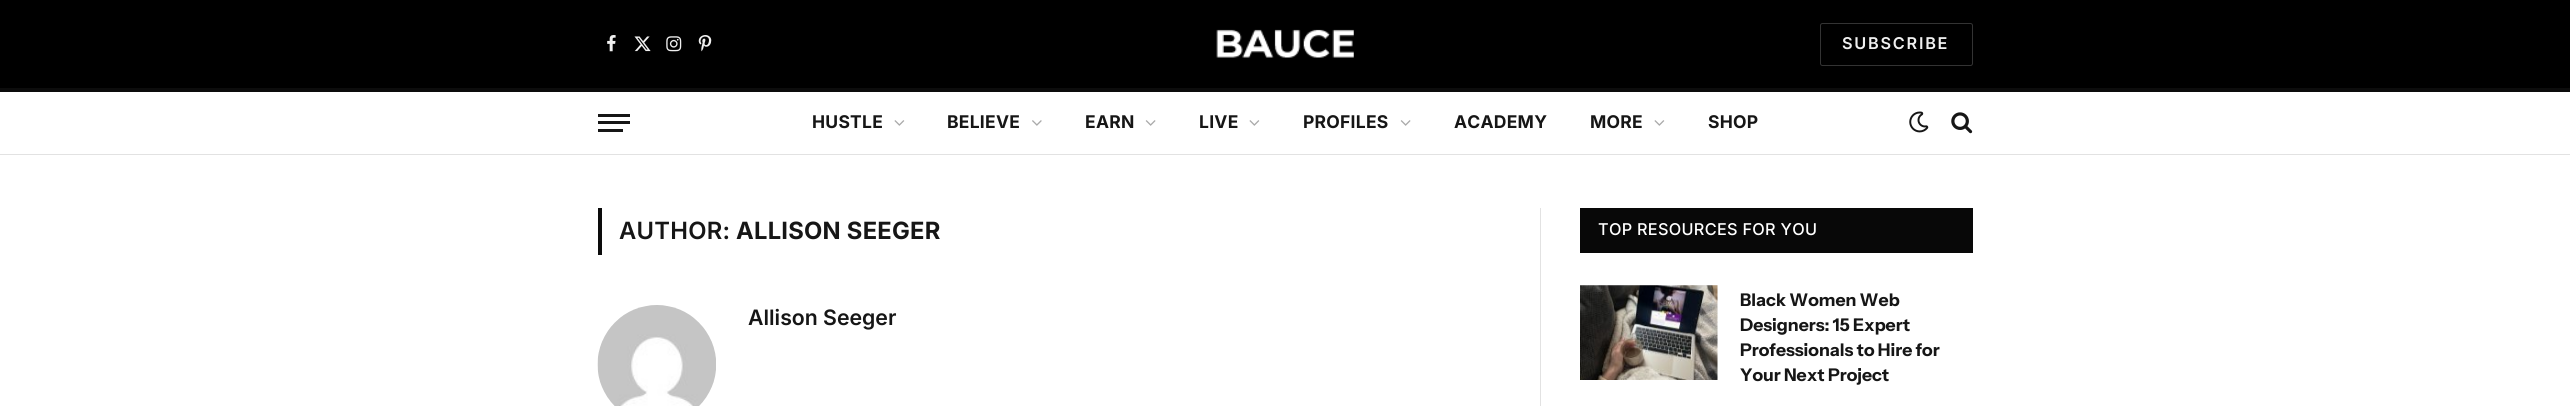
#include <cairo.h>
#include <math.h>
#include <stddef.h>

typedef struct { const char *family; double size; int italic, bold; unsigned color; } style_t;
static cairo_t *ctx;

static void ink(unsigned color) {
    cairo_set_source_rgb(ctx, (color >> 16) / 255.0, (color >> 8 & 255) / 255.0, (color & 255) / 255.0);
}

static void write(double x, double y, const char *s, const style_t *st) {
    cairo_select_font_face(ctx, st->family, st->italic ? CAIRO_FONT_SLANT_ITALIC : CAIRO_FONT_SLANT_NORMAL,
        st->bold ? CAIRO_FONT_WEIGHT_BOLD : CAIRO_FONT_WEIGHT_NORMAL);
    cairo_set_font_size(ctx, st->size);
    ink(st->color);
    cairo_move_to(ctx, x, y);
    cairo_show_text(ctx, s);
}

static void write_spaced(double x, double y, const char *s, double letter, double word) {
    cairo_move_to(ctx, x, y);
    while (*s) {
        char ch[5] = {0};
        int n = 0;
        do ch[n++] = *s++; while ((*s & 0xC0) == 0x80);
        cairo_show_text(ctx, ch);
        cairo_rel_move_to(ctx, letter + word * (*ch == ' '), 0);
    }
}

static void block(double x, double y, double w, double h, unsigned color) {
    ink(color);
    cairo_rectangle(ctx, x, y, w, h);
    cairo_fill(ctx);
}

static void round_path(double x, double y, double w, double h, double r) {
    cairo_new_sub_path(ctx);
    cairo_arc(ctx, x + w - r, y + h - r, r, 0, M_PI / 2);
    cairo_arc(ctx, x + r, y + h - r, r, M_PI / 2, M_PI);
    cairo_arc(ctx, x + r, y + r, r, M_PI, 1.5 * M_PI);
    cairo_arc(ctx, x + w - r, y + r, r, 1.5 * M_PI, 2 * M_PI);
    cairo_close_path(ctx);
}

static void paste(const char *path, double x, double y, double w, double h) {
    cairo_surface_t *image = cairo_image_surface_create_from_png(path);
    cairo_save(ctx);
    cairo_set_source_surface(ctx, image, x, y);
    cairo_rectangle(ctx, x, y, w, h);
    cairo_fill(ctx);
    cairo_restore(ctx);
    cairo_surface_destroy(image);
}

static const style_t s1 = {"Inter SemiBold", 21.25, 0, 0, 0x161616};
static const style_t s2 = {"Instrument Sans", 17.5, 0, 1, 0x161616};

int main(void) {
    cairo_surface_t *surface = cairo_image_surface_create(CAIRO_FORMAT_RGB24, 2570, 406);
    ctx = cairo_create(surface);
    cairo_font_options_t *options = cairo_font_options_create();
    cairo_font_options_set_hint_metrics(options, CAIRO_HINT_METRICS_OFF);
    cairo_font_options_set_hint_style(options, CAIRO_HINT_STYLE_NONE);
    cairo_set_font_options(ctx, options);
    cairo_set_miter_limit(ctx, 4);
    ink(0xffffff);
    cairo_paint(ctx);
    block(0, 0, 2570, 88, 0x000000);
    paste("pic1.png", 607, 35, 9, 17);
    paste("pic2.png", 634, 36, 17, 16);
    paste("pic3.png", 666, 36, 16, 16);
    paste("pic4.png", 698, 35, 14, 17);
    paste("pic5.png", 1216, 29, 138, 29);
    round_path(1820.5, 23.5, 152, 42, 2);
    ink(0x333333);
    cairo_set_line_width(ctx, 1);
    cairo_stroke(ctx);
    cairo_select_font_face(ctx, "Inter SemiBold", CAIRO_FONT_SLANT_NORMAL, CAIRO_FONT_WEIGHT_NORMAL);
    cairo_set_font_size(ctx, 16.25);
    ink(0xf0f0f0);
    write_spaced(1842, 49, "SUBSCRIBE", 1.75, 0);
    block(0, 88, 2570, 4, 0x0c0c0c);
    block(0, 154, 2570, 1, 0xe2e2e2);
    block(598, 129, 25, 3, 0x161616);
    block(598, 114, 32, 3, 0x161616);
    block(598, 121, 32, 3, 0x161616);
    cairo_select_font_face(ctx, "Inter", CAIRO_FONT_SLANT_NORMAL, CAIRO_FONT_WEIGHT_BOLD);
    cairo_set_font_size(ctx, 17.5);
    write_spaced(812, 128, "HUSTLE", 0.25, 0);
    paste("pic6.png", 894, 120, 11, 6);
    write_spaced(947, 128, "BELIEVE", 0.25, 0);
    paste("pic7.png", 1032, 120, 10, 6);
    write_spaced(1085, 128, "EARN", 0.25, 0);
    paste("pic8.png", 1145, 120, 11, 6);
    write_spaced(1199, 128, "LIVE", 0.25, 0);
    paste("pic6.png", 1249, 120, 11, 6);
    write_spaced(1303, 128, "PROFILES", 0.25, 0);
    paste("pic8.png", 1400, 120, 11, 6);
    write_spaced(1454, 128, "ACADEMY", 0.25, 0);
    write_spaced(1590, 128, "MORE", 0.25, 0);
    paste("pic6.png", 1654, 120, 11, 6);
    write_spaced(1708, 128, "SHOP", 0.25, 0);
    paste("pic9.png", 1909, 111, 20, 22);
    paste("pic10.png", 1951, 112, 22, 22);
    block(598, 208, 4, 47, 0x0c0c0c);
    cairo_select_font_face(ctx, "Inter SemiBold", CAIRO_FONT_SLANT_NORMAL, CAIRO_FONT_WEIGHT_NORMAL);
    cairo_set_font_size(ctx, 23.75);
    ink(0x161616);
    write_spaced(619, 239, "AUTHOR:", 0.25, 0);
    cairo_select_font_face(ctx, "Inter", CAIRO_FONT_SLANT_NORMAL, CAIRO_FONT_WEIGHT_BOLD);
    write_spaced(736, 239, "ALLISON SEEGER", 0.25, 0);
    paste("pic11.png", 597, 305, 119, 101);
    write(748, 325, "Allison Seeger", &s1);
    block(1540, 208, 1, 198, 0xe2e2e2);
    block(1580, 208, 393, 45, 0x080808);
    cairo_select_font_face(ctx, "Inter Medium", CAIRO_FONT_SLANT_NORMAL, CAIRO_FONT_WEIGHT_NORMAL);
    cairo_set_font_size(ctx, 16.25);
    ink(0xffffff);
    write_spaced(1598, 235, "TOP RESOURCES FOR YOU", 0.3, 0);
    paste("pic12.png", 1580, 285, 138, 95);
    write(1740, 306, "Black Women Web", &s2);
    write(1740, 331, "Designers: 15 Expert", &s2);
    write(1740, 356, "Professionals to Hire for", &s2);
    write(1740, 381, "Your Next Project", &s2);
    cairo_surface_write_to_png(surface, "screenshot.png");
    cairo_font_options_destroy(options);
    cairo_destroy(ctx);
    cairo_surface_destroy(surface);
    return 0;
}
